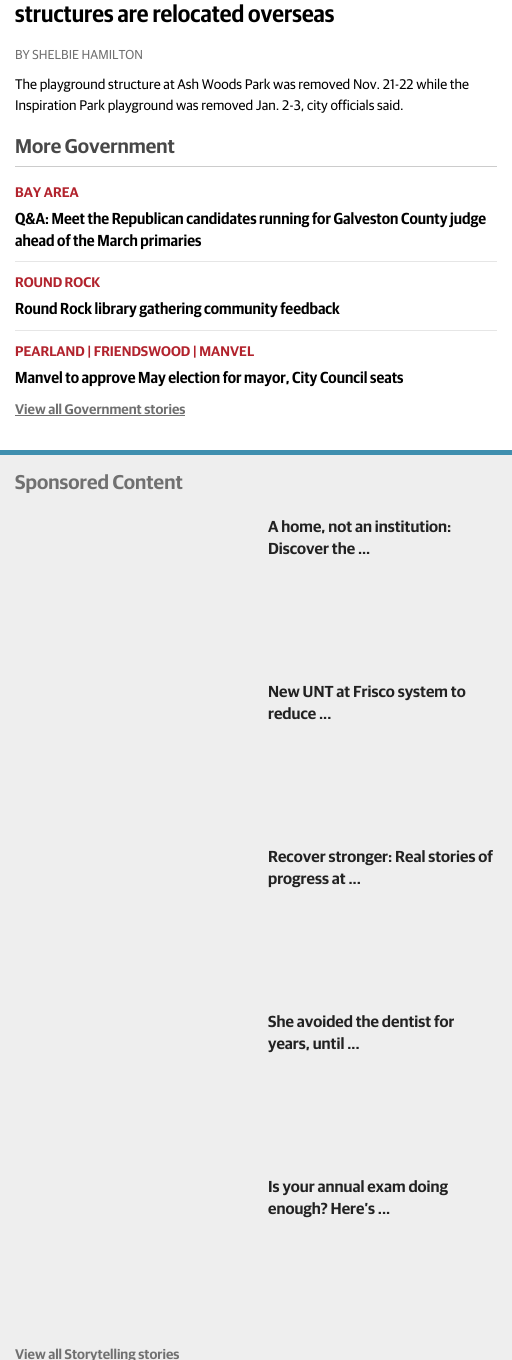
#include <cairo.h>
#include <math.h>
#include <stddef.h>

typedef struct { const char *family; double size; int italic, bold; unsigned color; } style_t;
static cairo_t *ctx;

static void ink(unsigned color) {
    cairo_set_source_rgb(ctx, (color >> 16) / 255.0, (color >> 8 & 255) / 255.0, (color & 255) / 255.0);
}

static void write(double x, double y, const char *s, const style_t *st) {
    cairo_select_font_face(ctx, st->family, st->italic ? CAIRO_FONT_SLANT_ITALIC : CAIRO_FONT_SLANT_NORMAL,
        st->bold ? CAIRO_FONT_WEIGHT_BOLD : CAIRO_FONT_WEIGHT_NORMAL);
    cairo_set_font_size(ctx, st->size);
    ink(st->color);
    cairo_move_to(ctx, x, y);
    cairo_show_text(ctx, s);
}

static void block(double x, double y, double w, double h, unsigned color) {
    ink(color);
    cairo_rectangle(ctx, x, y, w, h);
    cairo_fill(ctx);
}

static const style_t s1 = {"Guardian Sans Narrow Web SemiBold", 24, 0, 0, 0x000000};
static const style_t s2 = {"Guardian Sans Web", 13, 0, 0, 0x707070};
static const style_t s3 = {"Guardian Sans Web", 14, 0, 0, 0x000000};
static const style_t s4 = {"Guardian Sans Web SemiBold", 20, 0, 0, 0x484848};
static const style_t s5 = {"Guardian Sans Web SemiBold", 14, 0, 0, 0xb2232d};
static const style_t s6 = {"Guardian Sans Narrow Web SemiBold", 16, 0, 0, 0x000000};
static const style_t s7 = {"Guardian Sans Web SemiBold", 14, 0, 0, 0x707070};
static const style_t s8 = {"Guardian Sans Web SemiBold", 20, 0, 0, 0x707070};
static const style_t s9 = {"Guardian Sans Web SemiBold", 16, 0, 0, 0x222222};

int main(void) {
    cairo_surface_t *surface = cairo_image_surface_create(CAIRO_FORMAT_RGB24, 512, 1360);
    ctx = cairo_create(surface);
    cairo_font_options_t *options = cairo_font_options_create();
    cairo_font_options_set_hint_metrics(options, CAIRO_HINT_METRICS_OFF);
    cairo_font_options_set_hint_style(options, CAIRO_HINT_STYLE_NONE);
    cairo_set_font_options(ctx, options);
    cairo_set_miter_limit(ctx, 4);
    ink(0xffffff);
    cairo_paint(ctx);
    write(15, 22, "structures are relocated overseas", &s1);
    write(15, 59, "BY SHELBIE HAMILTON", &s2);
    write(15, 89, "The playground structure at Ash Woods Park was removed Nov. 21-22 while the", &s3);
    write(15, 110, "Inspiration Park playground was removed Jan. 2-3, city officials said.", &s3);
    block(15, 166, 482, 1, 0xcccccc);
    write(15, 153, "More Government", &s4);
    block(15, 261, 482, 1, 0xe6e6e6);
    write(15, 197, "BAY AREA", &s5);
    write(15, 224, "Q&A: Meet the Republican candidates running for Galveston County judge", &s6);
    write(15, 246, "ahead of the March primaries", &s6);
    block(15, 330, 482, 1, 0xe6e6e6);
    write(15, 287, "ROUND ROCK", &s5);
    write(15, 314, "Round Rock library gathering community feedback", &s6);
    write(15, 356, "PEARLAND | FRIENDSWOOD | MANVEL", &s5);
    write(15, 383, "Manvel to approve May election for mayor, City Council seats", &s6);
    write(15, 414, "View all Government stories", &s7);
    block(15, 415, 170, 1, 0x707070);
    block(0, 455, 512, 905, 0xeeeeee);
    block(0, 450, 512, 5, 0x3f8faf);
    write(15, 489, "Sponsored Content", &s8);
    write(268, 532, "A home, not an institution:", &s9);
    write(268, 554, "Discover the ...", &s9);
    write(268, 697, "New UNT at Frisco system to", &s9);
    write(268, 719, "reduce ...", &s9);
    write(268, 862, "Recover stronger: Real stories of", &s9);
    write(268, 884, "progress at ...", &s9);
    write(268, 1027, "She avoided the dentist for", &s9);
    write(268, 1049, "years, until ...", &s9);
    write(268, 1192, "Is your annual exam doing", &s9);
    write(268, 1214, "enough? Here’s ...", &s9);
    write(15, 1359, "View all Storytelling stories", &s7);
    cairo_surface_write_to_png(surface, "screenshot.png");
    cairo_font_options_destroy(options);
    cairo_destroy(ctx);
    cairo_surface_destroy(surface);
    return 0;
}
